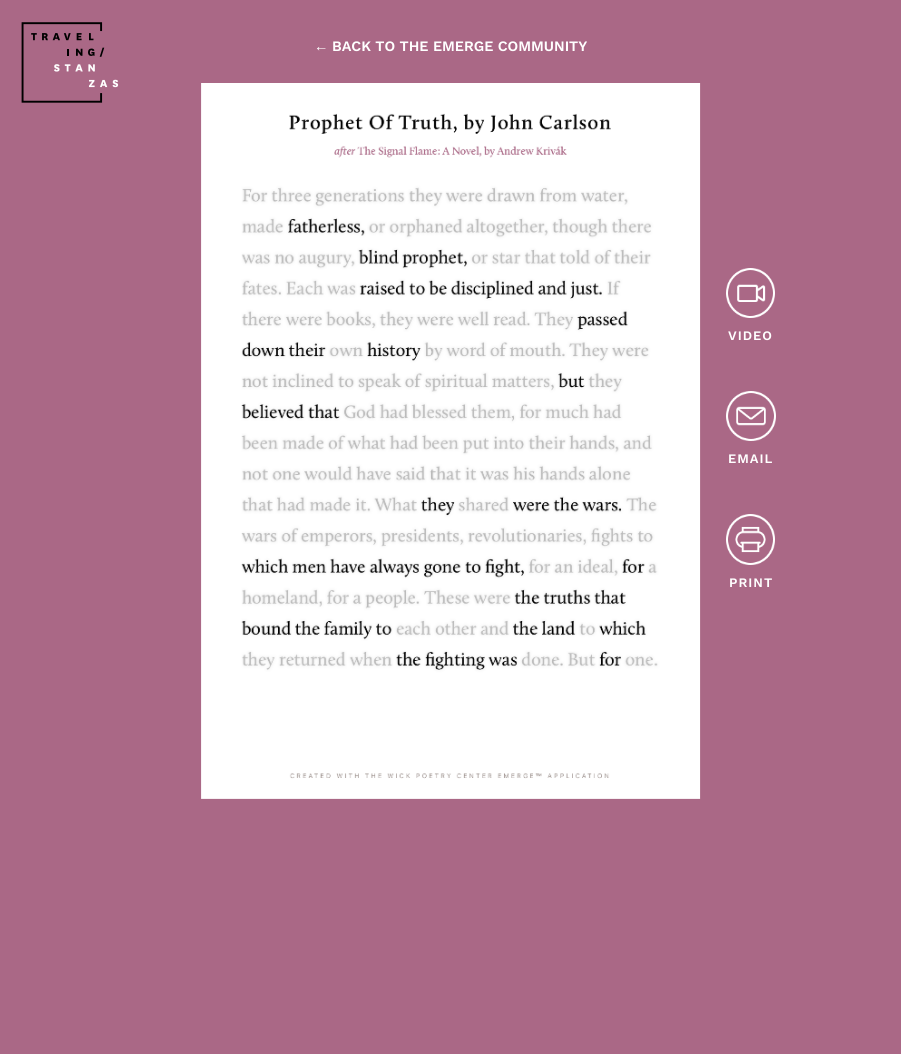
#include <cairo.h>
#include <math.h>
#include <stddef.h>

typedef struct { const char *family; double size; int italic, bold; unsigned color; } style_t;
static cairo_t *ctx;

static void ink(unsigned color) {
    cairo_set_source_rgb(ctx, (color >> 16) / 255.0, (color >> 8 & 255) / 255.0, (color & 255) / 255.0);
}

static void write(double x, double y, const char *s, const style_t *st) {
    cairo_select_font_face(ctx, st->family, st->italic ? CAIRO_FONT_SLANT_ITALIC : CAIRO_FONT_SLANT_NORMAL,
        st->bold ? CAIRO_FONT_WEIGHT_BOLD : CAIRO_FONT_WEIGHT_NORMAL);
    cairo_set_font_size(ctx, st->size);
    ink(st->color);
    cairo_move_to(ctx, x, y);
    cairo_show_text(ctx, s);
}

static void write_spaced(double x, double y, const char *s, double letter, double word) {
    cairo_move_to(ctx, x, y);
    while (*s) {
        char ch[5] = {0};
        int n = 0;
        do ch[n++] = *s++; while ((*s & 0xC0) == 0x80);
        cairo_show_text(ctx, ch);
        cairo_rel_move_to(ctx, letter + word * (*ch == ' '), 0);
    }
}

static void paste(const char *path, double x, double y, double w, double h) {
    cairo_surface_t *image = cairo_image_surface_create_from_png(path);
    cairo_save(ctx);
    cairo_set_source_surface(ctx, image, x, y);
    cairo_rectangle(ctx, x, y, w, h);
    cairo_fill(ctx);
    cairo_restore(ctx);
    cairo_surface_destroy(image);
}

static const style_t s1 = {"Liberation Sans", 14.4, 0, 1, 0xffffff};
static const style_t s2 = {"Work Sans SemiBold", 14.4, 0, 0, 0xffffff};

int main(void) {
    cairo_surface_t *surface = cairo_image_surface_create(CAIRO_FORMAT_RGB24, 901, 1054);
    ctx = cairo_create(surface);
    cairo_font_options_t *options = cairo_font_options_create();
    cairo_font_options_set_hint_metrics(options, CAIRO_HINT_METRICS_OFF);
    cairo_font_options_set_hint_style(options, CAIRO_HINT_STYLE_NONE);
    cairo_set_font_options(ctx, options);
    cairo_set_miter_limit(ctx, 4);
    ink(0xaa6886);
    cairo_paint(ctx);
    paste("pic1.png", 21, 22, 98, 81);
    write(314, 51, "←", &s1);
    write(332, 51, "BACK TO THE EMERGE COMMUNITY", &s2);
    paste("pic2.png", 201, 83, 500, 716);
    paste("pic3.png", 726, 268, 49, 50);
    cairo_set_font_size(ctx, 13);
    write_spaced(728, 340, "VIDEO", 1, 0);
    paste("pic4.png", 726, 391, 50, 50);
    write_spaced(728, 463, "EMAIL", 1, 0);
    paste("pic5.png", 726, 514, 49, 51);
    write_spaced(729, 587, "PRINT", 1, 0);
    cairo_surface_write_to_png(surface, "screenshot.png");
    cairo_font_options_destroy(options);
    cairo_destroy(ctx);
    cairo_surface_destroy(surface);
    return 0;
}
